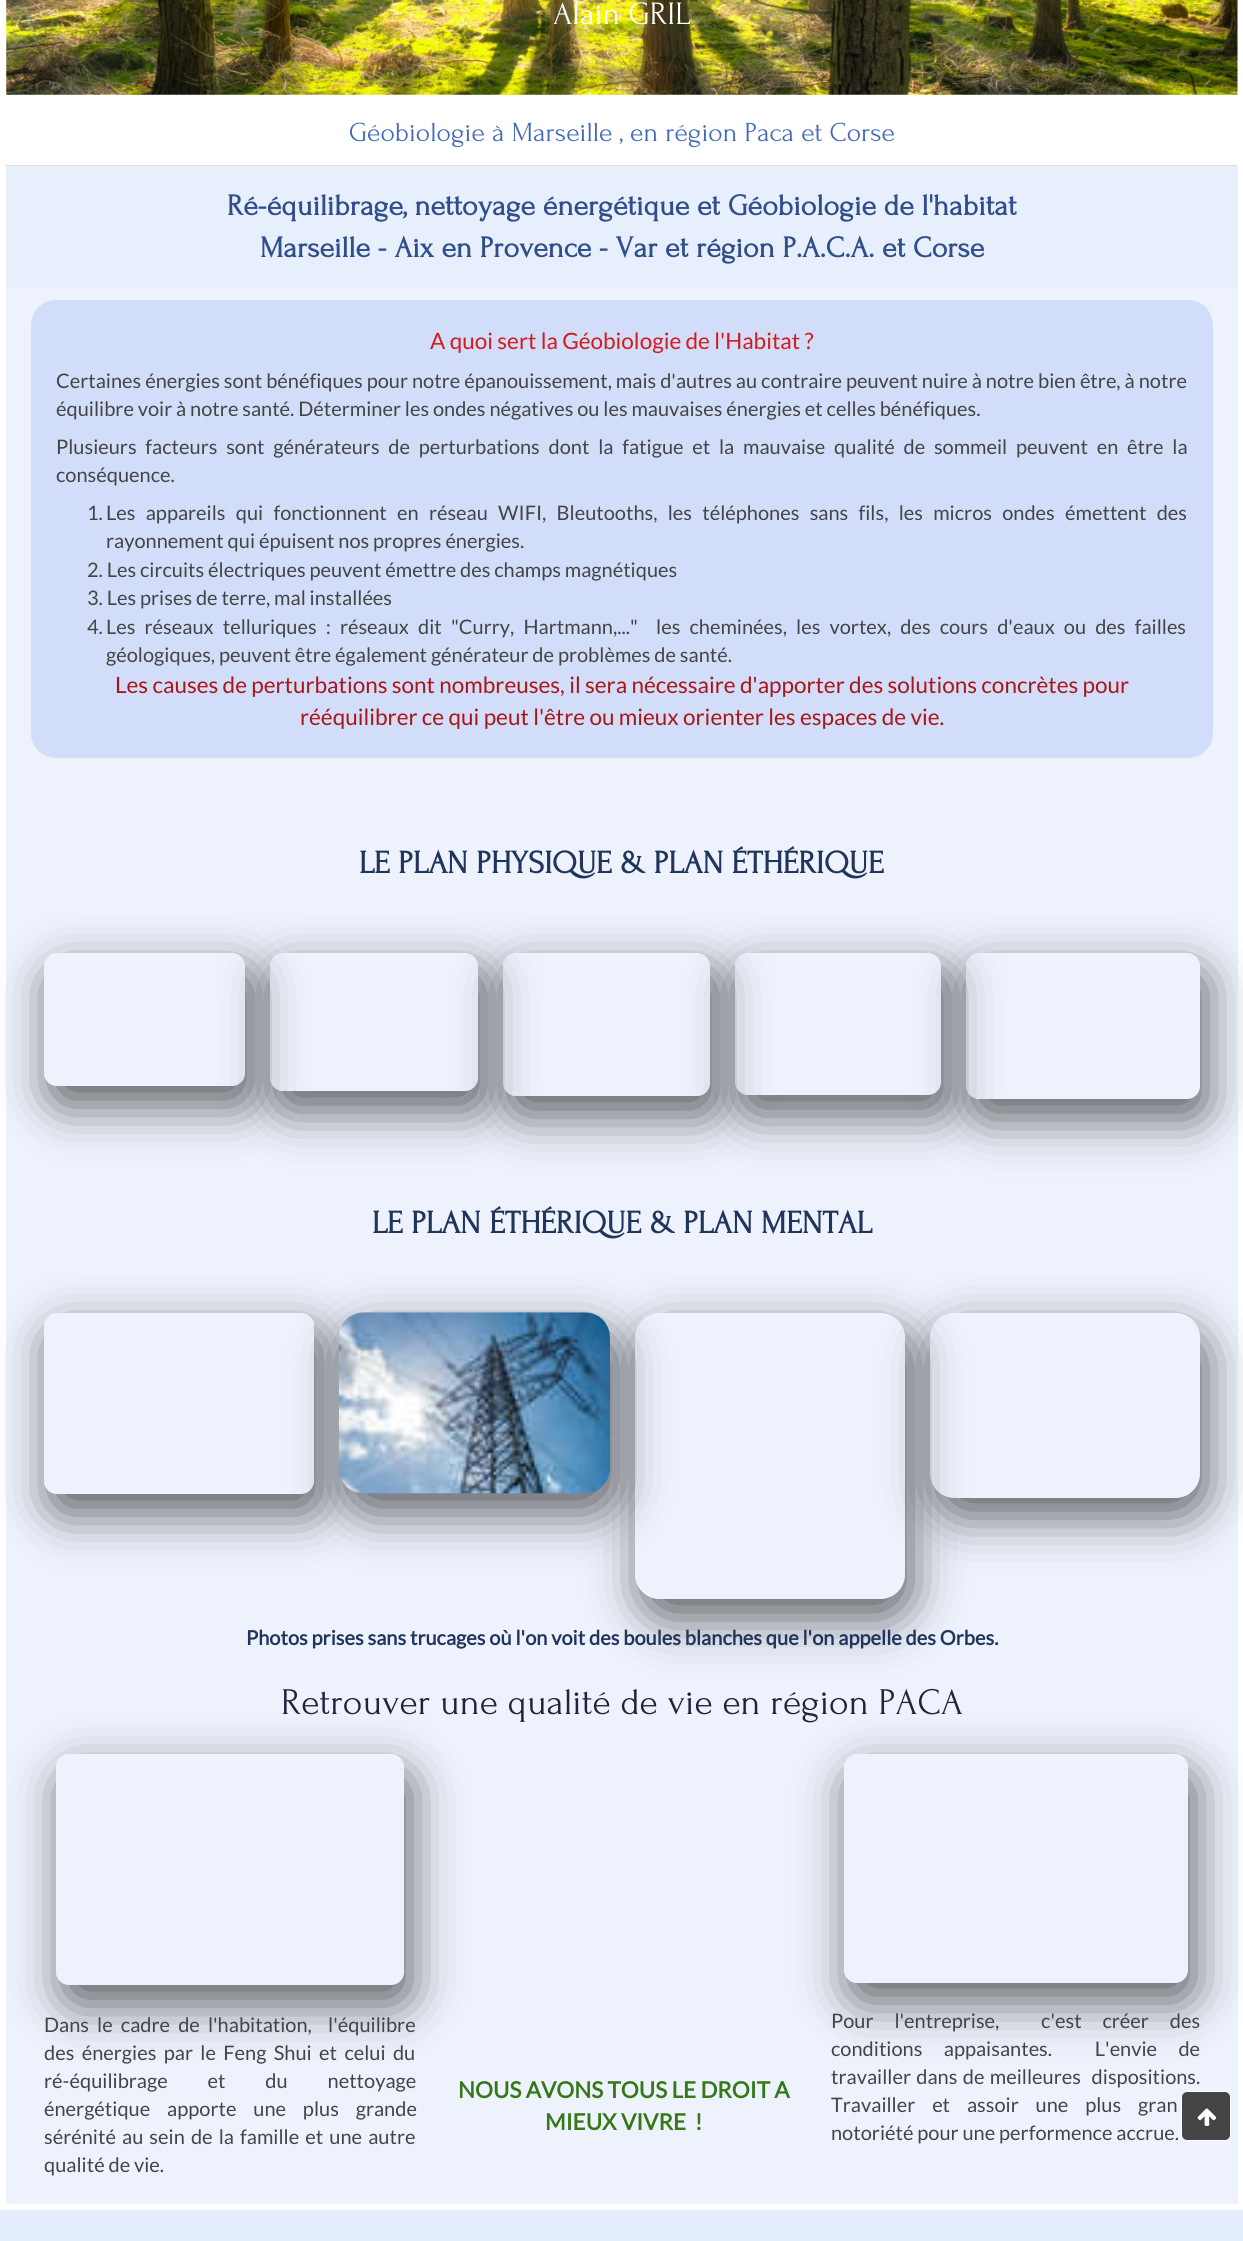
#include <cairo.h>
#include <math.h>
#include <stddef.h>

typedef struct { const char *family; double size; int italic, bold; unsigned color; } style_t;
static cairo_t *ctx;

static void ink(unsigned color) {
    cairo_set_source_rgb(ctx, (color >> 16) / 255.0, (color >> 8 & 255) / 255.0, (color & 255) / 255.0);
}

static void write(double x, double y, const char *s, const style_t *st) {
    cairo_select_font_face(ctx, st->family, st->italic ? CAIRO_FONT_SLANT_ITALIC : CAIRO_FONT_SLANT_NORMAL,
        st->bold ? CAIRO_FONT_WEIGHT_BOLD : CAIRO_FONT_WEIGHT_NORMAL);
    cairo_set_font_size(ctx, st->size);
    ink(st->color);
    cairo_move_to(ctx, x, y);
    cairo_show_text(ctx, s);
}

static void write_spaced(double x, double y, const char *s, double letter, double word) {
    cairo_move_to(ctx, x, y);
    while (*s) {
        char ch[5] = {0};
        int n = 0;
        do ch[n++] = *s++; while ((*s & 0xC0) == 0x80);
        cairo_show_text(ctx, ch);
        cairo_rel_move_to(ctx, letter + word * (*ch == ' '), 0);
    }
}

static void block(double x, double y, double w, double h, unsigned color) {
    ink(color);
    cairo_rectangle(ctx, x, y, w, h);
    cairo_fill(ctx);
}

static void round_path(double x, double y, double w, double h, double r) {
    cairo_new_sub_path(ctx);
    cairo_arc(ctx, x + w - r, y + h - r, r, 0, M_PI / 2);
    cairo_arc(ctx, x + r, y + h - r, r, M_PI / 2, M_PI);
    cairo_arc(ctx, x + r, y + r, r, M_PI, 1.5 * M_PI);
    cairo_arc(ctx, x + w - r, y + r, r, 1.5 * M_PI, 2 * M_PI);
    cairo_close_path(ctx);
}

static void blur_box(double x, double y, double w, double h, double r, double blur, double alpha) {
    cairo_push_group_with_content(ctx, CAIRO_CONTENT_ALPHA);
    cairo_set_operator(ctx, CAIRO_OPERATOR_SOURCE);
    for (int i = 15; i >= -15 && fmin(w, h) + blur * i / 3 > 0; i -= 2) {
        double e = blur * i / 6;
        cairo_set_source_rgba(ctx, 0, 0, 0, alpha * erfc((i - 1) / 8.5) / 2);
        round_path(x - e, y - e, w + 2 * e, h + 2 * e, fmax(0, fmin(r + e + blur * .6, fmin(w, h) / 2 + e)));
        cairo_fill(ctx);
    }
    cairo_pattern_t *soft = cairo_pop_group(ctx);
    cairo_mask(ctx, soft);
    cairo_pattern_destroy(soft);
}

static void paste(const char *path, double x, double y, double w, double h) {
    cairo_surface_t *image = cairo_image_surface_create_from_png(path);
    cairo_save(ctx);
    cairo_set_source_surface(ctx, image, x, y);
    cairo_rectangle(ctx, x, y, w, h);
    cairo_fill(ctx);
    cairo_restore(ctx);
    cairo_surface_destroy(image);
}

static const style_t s1 = {"Forum", 32.5, 0, 0, 0xffffff};
static const style_t s2 = {"Forum", 27.5, 0, 0, 0x4068b8};
static const style_t s3 = {"Forum", 30, 0, 1, 0x304e8a};
static const style_t s4 = {"Lato", 22.5, 0, 0, 0xd51a1a};
static const style_t s5 = {"Lato", 20, 0, 0, 0x444444};
static const style_t s6 = {"Lato", 22.5, 0, 0, 0xab1515};
static const style_t s7 = {"Forum", 32.5, 0, 1, 0x20345c};
static const style_t s8 = {"Lato", 20, 0, 1, 0x20345c};
static const style_t s9 = {"Forum", 37.5, 0, 0, 0x22223b};
static const style_t s10 = {"Lato", 22.5, 0, 1, 0x367818};

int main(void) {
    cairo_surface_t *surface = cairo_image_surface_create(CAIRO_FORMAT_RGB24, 1243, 2241);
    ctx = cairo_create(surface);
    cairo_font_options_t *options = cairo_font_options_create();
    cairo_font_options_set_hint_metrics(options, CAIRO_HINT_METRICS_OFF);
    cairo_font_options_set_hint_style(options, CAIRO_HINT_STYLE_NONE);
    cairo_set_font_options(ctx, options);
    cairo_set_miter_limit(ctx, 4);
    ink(0xffffff);
    cairo_paint(ctx);
    paste("pic1.png", 6, 0, 1232, 95);
    write(553, 24, "Alain GRIL", &s1);
    block(6, 165, 1232, 1, 0xdddddd);
    write(349, 141, "Géobiologie à Marseille , en région Paca et Corse", &s2);
    block(6, 166, 1232, 122, 0xe8effc);
    write(227, 215, "Ré-équilibrage, nettoyage énergétique et Géobiologie de l'habitat", &s3);
    write(260, 257, "Marseille - Aix en Provence - Var et région P.A.C.A. et Corse", &s3);
    block(6, 288, 1232, 1916, 0xedf2fd);
    ink(0xd1ddf9);
    round_path(31, 300, 1182, 458, 25);
    cairo_fill(ctx);
    write(430, 349, "A quoi sert la Géobiologie de l'Habitat ?", &s4);
    cairo_set_font_size(ctx, 20);
    ink(0x444444);
    write_spaced(56, 388, "Certaines énergies sont bénéfiques pour notre épanouissement, mais d'autres au contraire peuvent nuire à notre bien être, à notre", 0, 0.1);
    write(56, 416, "équilibre voir à notre santé. Déterminer les ondes négatives ou les mauvaises énergies et celles bénéfiques.", &s5);
    write_spaced(56, 454, "Plusieurs facteurs sont générateurs de perturbations dont la fatigue et la mauvaise qualité de sommeil peuvent en être la", 0, 4.9);
    write(56, 482, "conséquence.", &s5);
    write(87, 520, "1.", &s5);
    write_spaced(106, 520, "Les appareils qui fonctionnent en réseau WIFI, Bleutooths, les téléphones sans fils, les micros ondes émettent des", 0, 6.4);
    write(106, 548, "rayonnement qui épuisent nos propres énergies.", &s5);
    write(87, 577, "2. Les circuits électriques peuvent émettre des champs magnétiques", &s5);
    write(87, 605, "3. Les prises de terre, mal installées", &s5);
    write(87, 634, "4.", &s5);
    write_spaced(106, 634, "Les réseaux telluriques : réseaux dit \"Curry, Hartmann,...\"  les cheminées, les vortex, des cours d'eaux ou des failles", 0, 5.25);
    write(106, 662, "géologiques, peuvent être également générateur de problèmes de santé.", &s5);
    write(115, 693, "Les causes de perturbations sont nombreuses, il sera nécessaire d'apporter des solutions concrètes pour", &s6);
    write(300, 725, "rééquilibrer ce qui peut l'être ou mieux orienter les espaces de vie.", &s6);
    write(359, 873, "LE PLAN PHYSIQUE & PLAN ÉTHÉRIQUE", &s7);
    cairo_save(ctx);
    cairo_set_fill_rule(ctx, CAIRO_FILL_RULE_EVEN_ODD);
    cairo_new_path(ctx);
    cairo_move_to(ctx, 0, 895);
    cairo_line_to(ctx, 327, 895);
    cairo_line_to(ctx, 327, 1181);
    cairo_line_to(ctx, 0, 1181);
    cairo_close_path(ctx);
    cairo_move_to(ctx, 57, 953);
    cairo_line_to(ctx, 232, 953);
    cairo_curve_to(ctx, 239, 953, 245, 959, 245, 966);
    cairo_line_to(ctx, 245, 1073);
    cairo_curve_to(ctx, 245, 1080, 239, 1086, 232, 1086);
    cairo_line_to(ctx, 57, 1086);
    cairo_curve_to(ctx, 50, 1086, 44, 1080, 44, 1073);
    cairo_line_to(ctx, 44, 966);
    cairo_curve_to(ctx, 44, 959, 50, 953, 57, 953);
    cairo_close_path(ctx);
    cairo_clip(ctx);
    ink(0x2f2f2f);
    blur_box(50, 971, 201, 134, 13, 25, 0.75);
    cairo_restore(ctx);
    cairo_save(ctx);
    cairo_set_fill_rule(ctx, CAIRO_FILL_RULE_EVEN_ODD);
    cairo_new_path(ctx);
    cairo_move_to(ctx, 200, 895);
    cairo_line_to(ctx, 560, 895);
    cairo_line_to(ctx, 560, 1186);
    cairo_line_to(ctx, 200, 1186);
    cairo_close_path(ctx);
    cairo_move_to(ctx, 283, 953);
    cairo_line_to(ctx, 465, 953);
    cairo_curve_to(ctx, 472, 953, 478, 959, 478, 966);
    cairo_line_to(ctx, 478, 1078);
    cairo_curve_to(ctx, 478, 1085, 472, 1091, 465, 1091);
    cairo_line_to(ctx, 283, 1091);
    cairo_curve_to(ctx, 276, 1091, 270, 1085, 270, 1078);
    cairo_line_to(ctx, 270, 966);
    cairo_curve_to(ctx, 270, 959, 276, 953, 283, 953);
    cairo_close_path(ctx);
    cairo_clip(ctx);
    ink(0x2f2f2f);
    blur_box(276, 971, 208, 139, 13, 25, 0.75);
    cairo_restore(ctx);
    cairo_save(ctx);
    cairo_set_fill_rule(ctx, CAIRO_FILL_RULE_EVEN_ODD);
    cairo_new_path(ctx);
    cairo_move_to(ctx, 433, 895);
    cairo_line_to(ctx, 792, 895);
    cairo_line_to(ctx, 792, 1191);
    cairo_line_to(ctx, 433, 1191);
    cairo_close_path(ctx);
    cairo_move_to(ctx, 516, 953);
    cairo_line_to(ctx, 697, 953);
    cairo_curve_to(ctx, 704, 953, 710, 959, 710, 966);
    cairo_line_to(ctx, 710, 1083);
    cairo_curve_to(ctx, 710, 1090, 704, 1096, 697, 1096);
    cairo_line_to(ctx, 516, 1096);
    cairo_curve_to(ctx, 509, 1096, 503, 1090, 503, 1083);
    cairo_line_to(ctx, 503, 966);
    cairo_curve_to(ctx, 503, 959, 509, 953, 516, 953);
    cairo_close_path(ctx);
    cairo_clip(ctx);
    ink(0x2f2f2f);
    blur_box(509, 971, 207, 144, 13, 25, 0.75);
    cairo_restore(ctx);
    cairo_save(ctx);
    cairo_set_fill_rule(ctx, CAIRO_FILL_RULE_EVEN_ODD);
    cairo_new_path(ctx);
    cairo_move_to(ctx, 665, 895);
    cairo_line_to(ctx, 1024, 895);
    cairo_line_to(ctx, 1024, 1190);
    cairo_line_to(ctx, 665, 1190);
    cairo_close_path(ctx);
    cairo_move_to(ctx, 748, 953);
    cairo_line_to(ctx, 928, 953);
    cairo_curve_to(ctx, 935, 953, 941, 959, 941, 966);
    cairo_line_to(ctx, 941, 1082);
    cairo_curve_to(ctx, 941, 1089, 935, 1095, 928, 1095);
    cairo_line_to(ctx, 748, 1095);
    cairo_curve_to(ctx, 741, 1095, 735, 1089, 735, 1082);
    cairo_line_to(ctx, 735, 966);
    cairo_curve_to(ctx, 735, 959, 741, 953, 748, 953);
    cairo_close_path(ctx);
    cairo_clip(ctx);
    ink(0x2f2f2f);
    blur_box(741, 971, 207, 143, 13, 25, 0.75);
    cairo_restore(ctx);
    cairo_save(ctx);
    cairo_set_fill_rule(ctx, CAIRO_FILL_RULE_EVEN_ODD);
    cairo_new_path(ctx);
    cairo_move_to(ctx, 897, 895);
    cairo_line_to(ctx, 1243, 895);
    cairo_line_to(ctx, 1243, 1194);
    cairo_line_to(ctx, 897, 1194);
    cairo_close_path(ctx);
    cairo_move_to(ctx, 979, 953);
    cairo_line_to(ctx, 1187, 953);
    cairo_curve_to(ctx, 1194, 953, 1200, 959, 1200, 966);
    cairo_line_to(ctx, 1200, 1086);
    cairo_curve_to(ctx, 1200, 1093, 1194, 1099, 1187, 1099);
    cairo_line_to(ctx, 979, 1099);
    cairo_curve_to(ctx, 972, 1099, 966, 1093, 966, 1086);
    cairo_line_to(ctx, 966, 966);
    cairo_curve_to(ctx, 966, 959, 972, 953, 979, 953);
    cairo_close_path(ctx);
    cairo_clip(ctx);
    ink(0x2f2f2f);
    blur_box(973, 971, 233, 147, 13, 25, 0.75);
    cairo_restore(ctx);
    write(372, 1233, "LE PLAN ÉTHÉRIQUE & PLAN MENTAL", &s7);
    cairo_save(ctx);
    cairo_set_fill_rule(ctx, CAIRO_FILL_RULE_EVEN_ODD);
    cairo_new_path(ctx);
    cairo_move_to(ctx, 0, 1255);
    cairo_line_to(ctx, 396, 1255);
    cairo_line_to(ctx, 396, 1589);
    cairo_line_to(ctx, 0, 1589);
    cairo_close_path(ctx);
    cairo_move_to(ctx, 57, 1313);
    cairo_line_to(ctx, 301, 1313);
    cairo_curve_to(ctx, 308, 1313, 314, 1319, 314, 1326);
    cairo_line_to(ctx, 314, 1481);
    cairo_curve_to(ctx, 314, 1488, 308, 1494, 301, 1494);
    cairo_line_to(ctx, 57, 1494);
    cairo_curve_to(ctx, 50, 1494, 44, 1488, 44, 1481);
    cairo_line_to(ctx, 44, 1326);
    cairo_curve_to(ctx, 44, 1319, 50, 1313, 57, 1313);
    cairo_close_path(ctx);
    cairo_clip(ctx);
    ink(0x2f2f2f);
    blur_box(50, 1331, 270, 182, 13, 25, 0.75);
    cairo_restore(ctx);
    ink(0x2f2f2f);
    blur_box(345, 1331, 271, 182, 25, 25, 0.75);
    paste("pic2.png", 338, 1312, 272, 182);
    cairo_save(ctx);
    cairo_set_fill_rule(ctx, CAIRO_FILL_RULE_EVEN_ODD);
    cairo_new_path(ctx);
    cairo_move_to(ctx, 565, 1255);
    cairo_line_to(ctx, 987, 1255);
    cairo_line_to(ctx, 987, 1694);
    cairo_line_to(ctx, 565, 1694);
    cairo_close_path(ctx);
    cairo_move_to(ctx, 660, 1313);
    cairo_line_to(ctx, 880, 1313);
    cairo_curve_to(ctx, 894, 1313, 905, 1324, 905, 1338);
    cairo_line_to(ctx, 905, 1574);
    cairo_curve_to(ctx, 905, 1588, 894, 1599, 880, 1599);
    cairo_line_to(ctx, 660, 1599);
    cairo_curve_to(ctx, 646, 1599, 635, 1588, 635, 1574);
    cairo_line_to(ctx, 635, 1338);
    cairo_curve_to(ctx, 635, 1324, 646, 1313, 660, 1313);
    cairo_close_path(ctx);
    cairo_clip(ctx);
    blur_box(641, 1331, 270, 287, 25, 25, 0.75);
    cairo_restore(ctx);
    cairo_save(ctx);
    cairo_set_fill_rule(ctx, CAIRO_FILL_RULE_EVEN_ODD);
    cairo_new_path(ctx);
    cairo_move_to(ctx, 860, 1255);
    cairo_line_to(ctx, 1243, 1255);
    cairo_line_to(ctx, 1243, 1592);
    cairo_line_to(ctx, 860, 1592);
    cairo_close_path(ctx);
    cairo_move_to(ctx, 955, 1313);
    cairo_line_to(ctx, 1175, 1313);
    cairo_curve_to(ctx, 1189, 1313, 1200, 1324, 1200, 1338);
    cairo_line_to(ctx, 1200, 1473);
    cairo_curve_to(ctx, 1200, 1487, 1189, 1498, 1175, 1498);
    cairo_line_to(ctx, 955, 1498);
    cairo_curve_to(ctx, 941, 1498, 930, 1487, 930, 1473);
    cairo_line_to(ctx, 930, 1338);
    cairo_curve_to(ctx, 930, 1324, 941, 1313, 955, 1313);
    cairo_close_path(ctx);
    cairo_clip(ctx);
    blur_box(936, 1331, 270, 185, 25, 25, 0.75);
    cairo_restore(ctx);
    write(246, 1645, "Photos prises sans trucages où l'on voit des boules blanches que l'on appelle des Orbes.", &s8);
    cairo_save(ctx);
    cairo_set_fill_rule(ctx, CAIRO_FILL_RULE_EVEN_ODD);
    cairo_new_path(ctx);
    cairo_move_to(ctx, 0, 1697);
    cairo_line_to(ctx, 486, 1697);
    cairo_line_to(ctx, 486, 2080);
    cairo_line_to(ctx, 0, 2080);
    cairo_close_path(ctx);
    cairo_move_to(ctx, 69, 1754);
    cairo_line_to(ctx, 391, 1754);
    cairo_curve_to(ctx, 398, 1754, 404, 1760, 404, 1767);
    cairo_line_to(ctx, 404, 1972);
    cairo_curve_to(ctx, 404, 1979, 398, 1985, 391, 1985);
    cairo_line_to(ctx, 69, 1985);
    cairo_curve_to(ctx, 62, 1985, 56, 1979, 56, 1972);
    cairo_line_to(ctx, 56, 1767);
    cairo_curve_to(ctx, 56, 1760, 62, 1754, 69, 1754);
    cairo_close_path(ctx);
    cairo_clip(ctx);
    ink(0x2f2f2f);
    blur_box(63, 1773, 347, 231, 13, 25, 0.75);
    cairo_restore(ctx);
    cairo_save(ctx);
    cairo_set_fill_rule(ctx, CAIRO_FILL_RULE_EVEN_ODD);
    cairo_new_path(ctx);
    cairo_move_to(ctx, 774, 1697);
    cairo_line_to(ctx, 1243, 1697);
    cairo_line_to(ctx, 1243, 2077);
    cairo_line_to(ctx, 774, 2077);
    cairo_close_path(ctx);
    cairo_move_to(ctx, 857, 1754);
    cairo_line_to(ctx, 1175, 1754);
    cairo_curve_to(ctx, 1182, 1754, 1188, 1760, 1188, 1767);
    cairo_line_to(ctx, 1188, 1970);
    cairo_curve_to(ctx, 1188, 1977, 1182, 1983, 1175, 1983);
    cairo_line_to(ctx, 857, 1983);
    cairo_curve_to(ctx, 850, 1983, 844, 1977, 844, 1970);
    cairo_line_to(ctx, 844, 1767);
    cairo_curve_to(ctx, 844, 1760, 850, 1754, 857, 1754);
    cairo_close_path(ctx);
    cairo_clip(ctx);
    ink(0x2f2f2f);
    blur_box(850, 1773, 344, 228, 13, 25, 0.75);
    cairo_restore(ctx);
    write(281, 1714, "Retrouver une qualité de vie en région PACA", &s9);
    cairo_select_font_face(ctx, "Lato", CAIRO_FONT_SLANT_NORMAL, CAIRO_FONT_WEIGHT_NORMAL);
    cairo_set_font_size(ctx, 20);
    ink(0x444444);
    write_spaced(44, 2032, "Dans le cadre de l'habitation,  l'équilibre", 0, 4.25);
    write_spaced(44, 2060, "des énergies par le Feng Shui et celui du", 0, 3.5);
    write_spaced(44, 2088, "ré-équilibrage et du nettoyage", 0, 36);
    write_spaced(44, 2116, "énergétique apporte une plus grande", 0, 13);
    write_spaced(44, 2144, "sérénité au sein de la famille et une autre", 0, 2.25);
    write(44, 2172, "qualité de vie.", &s5);
    write(458, 2098, "NOUS AVONS TOUS LE DROIT A", &s10);
    write(545, 2130, "MIEUX VIVRE  !", &s10);
    cairo_select_font_face(ctx, "Lato", CAIRO_FONT_SLANT_NORMAL, CAIRO_FONT_WEIGHT_NORMAL);
    cairo_set_font_size(ctx, 20);
    ink(0x444444);
    write_spaced(831, 2028, "Pour l'entreprise,  c'est créer des", 0, 17);
    write_spaced(831, 2056, "conditions appaisantes.  L'envie de", 0, 17.5);
    write_spaced(831, 2084, "travailler dans de meilleures  dispositions.", 0, 1.5);
    write_spaced(831, 2112, "Travailler et assoir une plus gran", 0, 13);
    write(831, 2140, "notoriété pour une performence accrue.", &s5);
    block(0, 2210, 1243, 31, 0xe4eefd);
    ink(0x444444);
    round_path(1181.5, 2091.5, 49, 49, 5.5);
    cairo_fill_preserve(ctx);
    ink(0xffffff);
    cairo_set_line_width(ctx, 1);
    cairo_stroke(ctx);
    paste("pic3.png", 1197, 2108, 20, 18);
    cairo_surface_write_to_png(surface, "screenshot.png");
    cairo_font_options_destroy(options);
    cairo_destroy(ctx);
    cairo_surface_destroy(surface);
    return 0;
}
